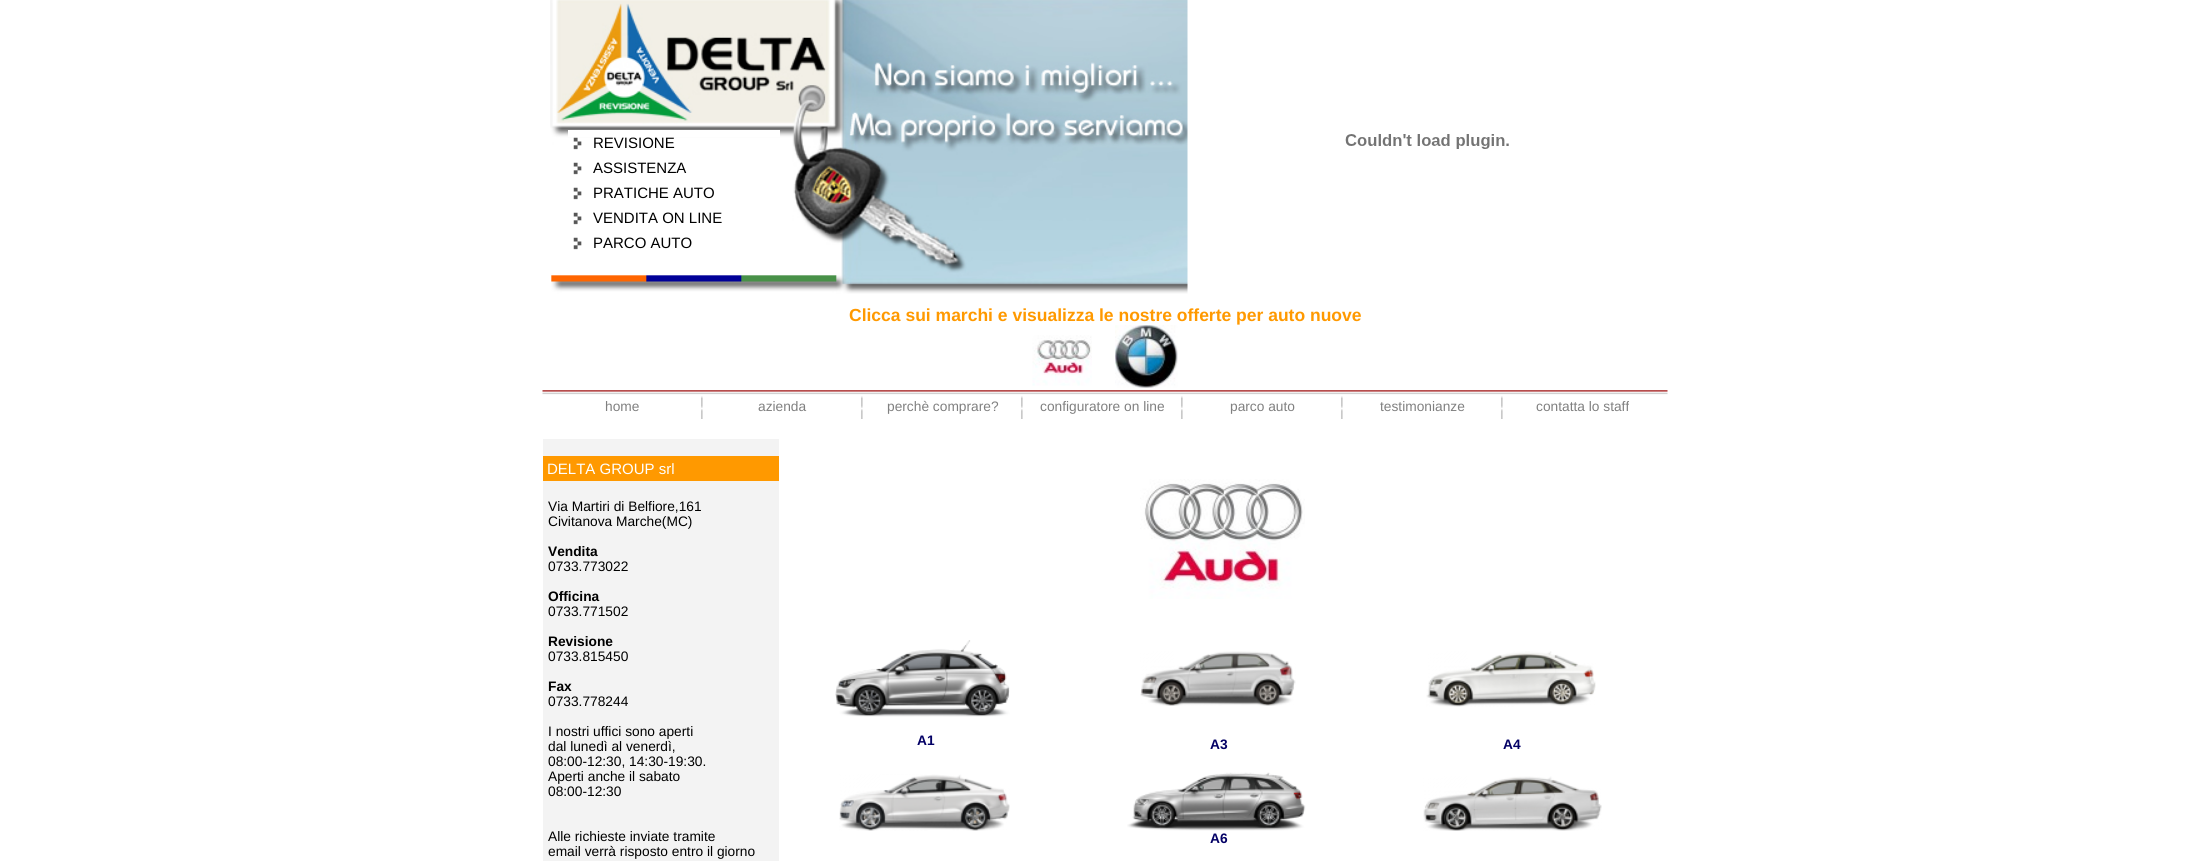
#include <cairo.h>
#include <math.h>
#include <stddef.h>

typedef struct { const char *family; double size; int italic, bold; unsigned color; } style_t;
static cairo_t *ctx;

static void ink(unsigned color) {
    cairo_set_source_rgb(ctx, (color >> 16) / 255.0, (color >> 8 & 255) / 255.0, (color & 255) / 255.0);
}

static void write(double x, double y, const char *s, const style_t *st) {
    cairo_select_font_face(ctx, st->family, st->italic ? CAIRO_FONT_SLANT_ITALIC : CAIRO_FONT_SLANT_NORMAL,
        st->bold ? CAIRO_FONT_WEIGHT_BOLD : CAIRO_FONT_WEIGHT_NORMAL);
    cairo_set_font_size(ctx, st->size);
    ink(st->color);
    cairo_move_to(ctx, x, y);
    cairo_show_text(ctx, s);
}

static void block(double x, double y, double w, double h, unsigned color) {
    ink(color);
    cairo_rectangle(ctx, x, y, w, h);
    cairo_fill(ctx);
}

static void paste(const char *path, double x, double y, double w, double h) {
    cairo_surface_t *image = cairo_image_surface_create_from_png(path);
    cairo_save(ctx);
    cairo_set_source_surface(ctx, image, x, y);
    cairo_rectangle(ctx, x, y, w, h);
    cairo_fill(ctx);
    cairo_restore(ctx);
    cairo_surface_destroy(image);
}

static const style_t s1 = {"Liberation Sans", 15, 0, 0, 0x000000};
static const style_t s2 = {"Liberation Sans", 17.5, 0, 1, 0xff9900};
static const style_t s3 = {"Liberation Sans", 13.75, 0, 0, 0x808080};
static const style_t s4 = {"Liberation Sans", 15, 0, 0, 0xffffff};
static const style_t s5 = {"Liberation Sans", 13.75, 0, 0, 0x000000};
static const style_t s6 = {"Liberation Sans", 13.75, 0, 1, 0x000000};
static const style_t s7 = {"Liberation Sans", 13.75, 0, 1, 0x030065};

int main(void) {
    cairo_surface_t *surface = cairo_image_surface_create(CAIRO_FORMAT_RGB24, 2210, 861);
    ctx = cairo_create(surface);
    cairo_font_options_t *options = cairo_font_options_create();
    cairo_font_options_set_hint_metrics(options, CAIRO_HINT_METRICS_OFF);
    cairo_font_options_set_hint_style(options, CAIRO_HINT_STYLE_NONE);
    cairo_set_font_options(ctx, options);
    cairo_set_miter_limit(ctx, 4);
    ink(0xffffff);
    cairo_paint(ctx);
    paste("pic1.png", 550, 0, 638, 294);
    block(568, 130, 212, 7, 0xffffff);
    paste("pic2.png", 573, 137, 9, 13);
    write(593, 148, "REVISIONE", &s1);
    paste("pic2.png", 573, 162, 9, 13);
    write(593, 173, "ASSISTENZA", &s1);
    paste("pic2.png", 573, 187, 9, 13);
    write(593, 198, "PRATICHE AUTO", &s1);
    paste("pic2.png", 573, 212, 9, 13);
    write(593, 223, "VENDITA ON LINE", &s1);
    paste("pic2.png", 573, 237, 9, 13);
    write(593, 248, "PARCO AUTO", &s1);
    paste("pic3.png", 1345, 134, 164, 15);
    paste("pic4.png", 542, 390, 1126, 5);
    write(849, 321, "Clicca sui marchi e visualizza le nostre offerte per auto nuove", &s2);
    paste("pic5.png", 1032, 335, 60, 51);
    paste("pic6.png", 1115, 325, 63, 63);
    paste("pic7.png", 701, 396, 2, 23);
    write(605, 411, "home", &s3);
    paste("pic7.png", 861, 396, 2, 23);
    write(758, 411, "azienda", &s3);
    paste("pic7.png", 1021, 396, 2, 23);
    write(887, 411, "perchè comprare?", &s3);
    paste("pic7.png", 1181, 396, 2, 23);
    write(1040, 411, "configuratore on line", &s3);
    paste("pic7.png", 1341, 396, 2, 23);
    write(1230, 411, "parco auto", &s3);
    paste("pic7.png", 1501, 396, 2, 23);
    write(1380, 411, "testimonianze", &s3);
    write(1536, 411, "contatta lo staff", &s3);
    block(543, 439, 236, 422, 0xf3f3f3);
    block(543, 456, 236, 25, 0xff9900);
    write(547, 474, "DELTA GROUP srl", &s4);
    write(548, 511, "Via Martiri di Belfiore,161", &s5);
    write(548, 526, "Civitanova Marche(MC)", &s5);
    write(548, 556, "Vendita", &s6);
    write(548, 571, "0733.773022", &s5);
    write(548, 601, "Officina", &s6);
    write(548, 616, "0733.771502", &s5);
    write(548, 646, "Revisione", &s6);
    write(548, 661, "0733.815450", &s5);
    write(548, 691, "Fax", &s6);
    write(548, 706, "0733.778244", &s5);
    write(548, 736, "I nostri uffici sono aperti", &s5);
    write(548, 751, "dal lunedì al venerdì,", &s5);
    write(548, 766, "08:00-12:30, 14:30-19:30.", &s5);
    write(548, 781, "Aperti anche il sabato", &s5);
    write(548, 796, "08:00-12:30", &s5);
    write(548, 841, "Alle richieste inviate tramite", &s5);
    write(548, 856, "email verrà risposto entro il giorno", &s5);
    paste("pic8.png", 1140, 479, 165, 120);
    paste("pic9.png", 835, 640, 175, 77);
    write(917, 745, "A1", &s7);
    paste("pic10.png", 1140, 651, 156, 55);
    write(1210, 749, "A3", &s7);
    paste("pic11.png", 1426, 651, 170, 56);
    write(1503, 749, "A4", &s7);
    paste("pic12.png", 839, 774, 171, 57);
    paste("pic13.png", 1423, 776, 179, 55);
    paste("pic14.png", 1127, 772, 179, 59);
    write(1210, 843, "A6", &s7);
    cairo_surface_write_to_png(surface, "screenshot.png");
    cairo_font_options_destroy(options);
    cairo_destroy(ctx);
    cairo_surface_destroy(surface);
    return 0;
}
